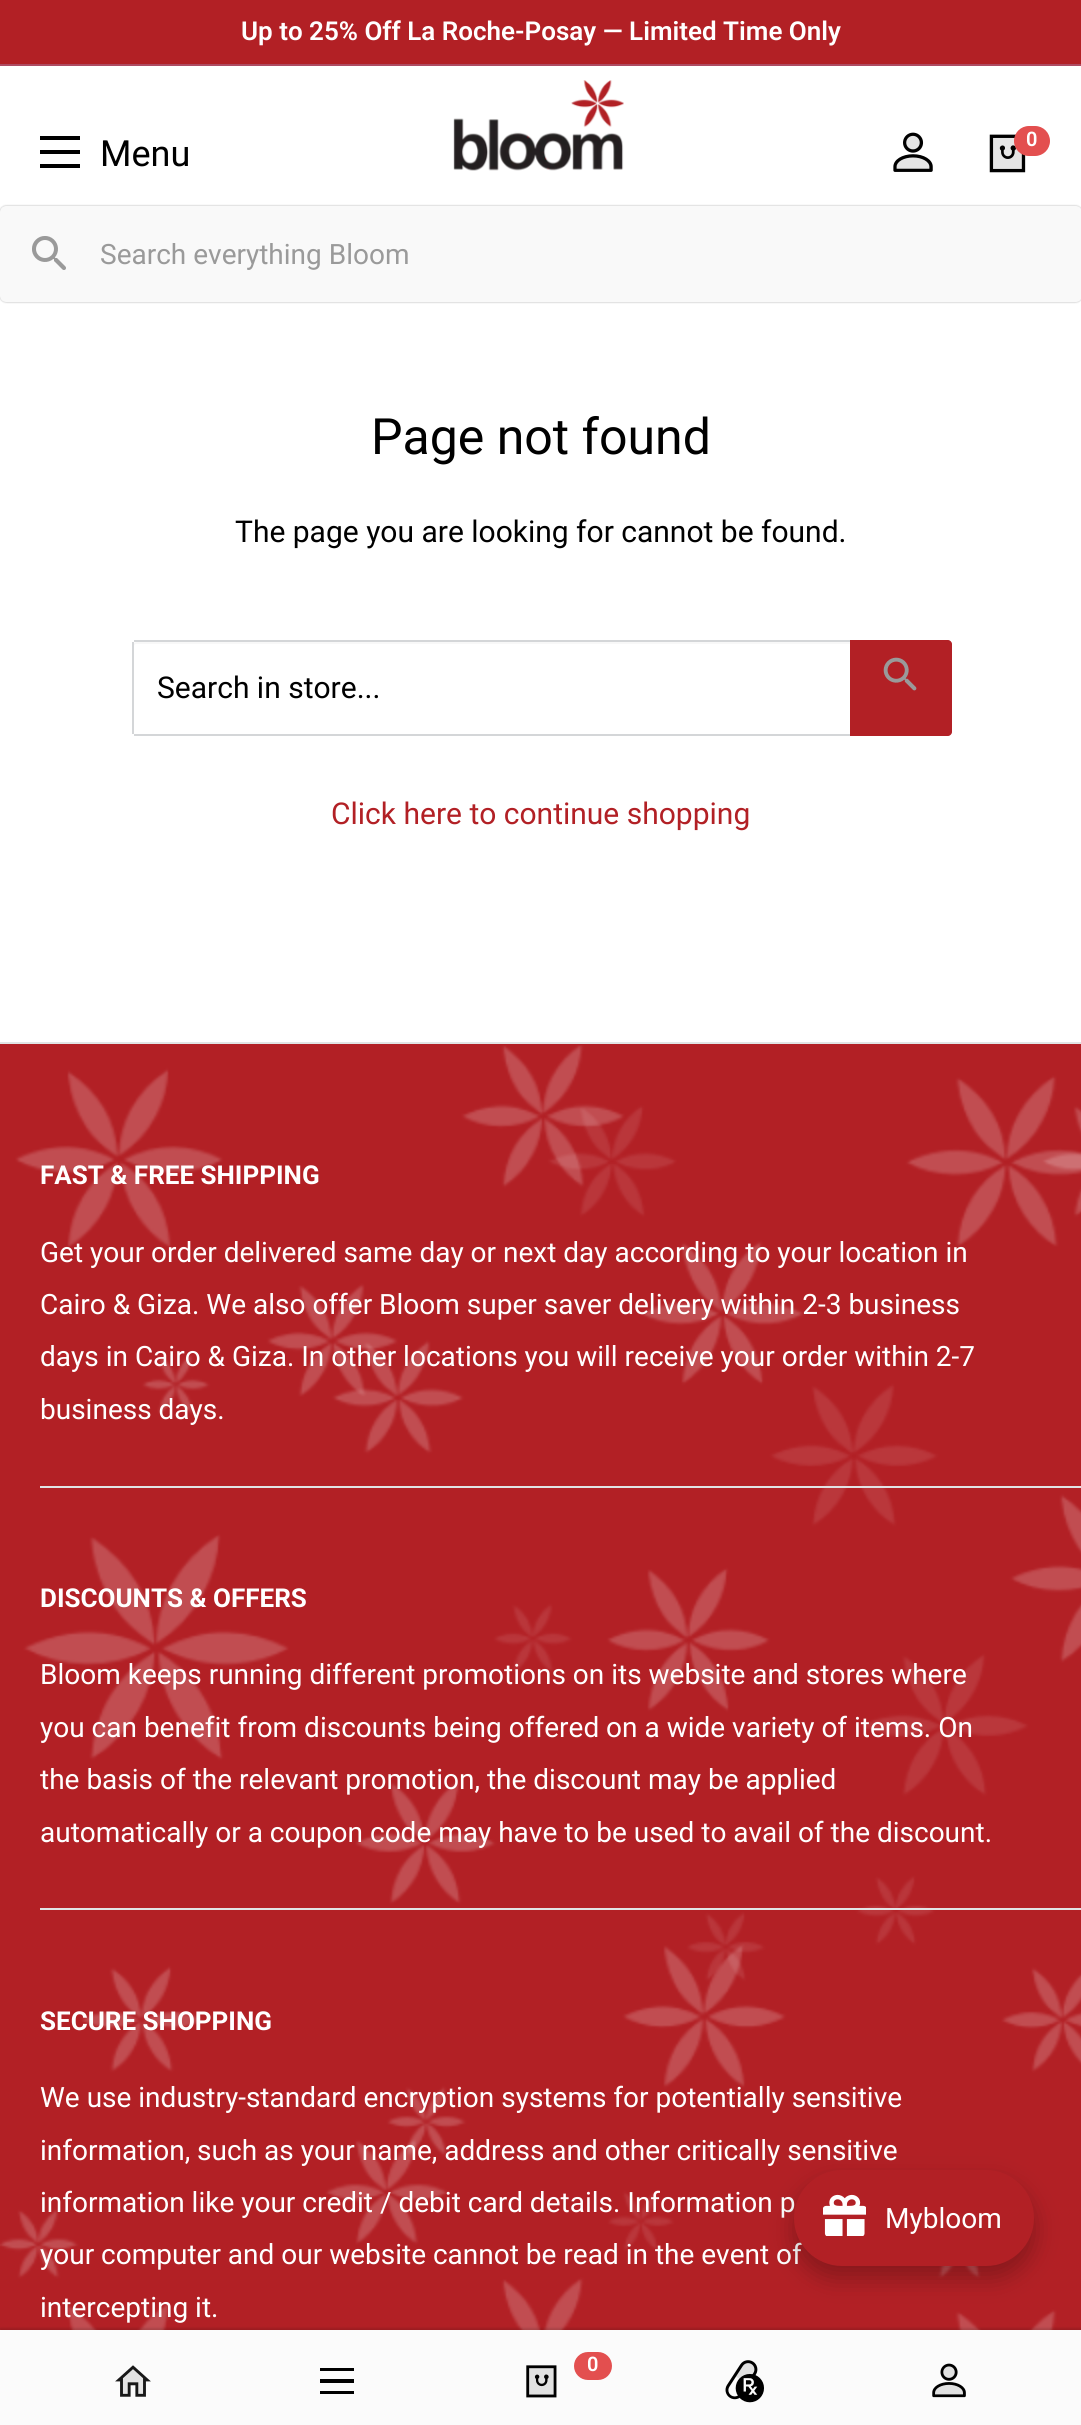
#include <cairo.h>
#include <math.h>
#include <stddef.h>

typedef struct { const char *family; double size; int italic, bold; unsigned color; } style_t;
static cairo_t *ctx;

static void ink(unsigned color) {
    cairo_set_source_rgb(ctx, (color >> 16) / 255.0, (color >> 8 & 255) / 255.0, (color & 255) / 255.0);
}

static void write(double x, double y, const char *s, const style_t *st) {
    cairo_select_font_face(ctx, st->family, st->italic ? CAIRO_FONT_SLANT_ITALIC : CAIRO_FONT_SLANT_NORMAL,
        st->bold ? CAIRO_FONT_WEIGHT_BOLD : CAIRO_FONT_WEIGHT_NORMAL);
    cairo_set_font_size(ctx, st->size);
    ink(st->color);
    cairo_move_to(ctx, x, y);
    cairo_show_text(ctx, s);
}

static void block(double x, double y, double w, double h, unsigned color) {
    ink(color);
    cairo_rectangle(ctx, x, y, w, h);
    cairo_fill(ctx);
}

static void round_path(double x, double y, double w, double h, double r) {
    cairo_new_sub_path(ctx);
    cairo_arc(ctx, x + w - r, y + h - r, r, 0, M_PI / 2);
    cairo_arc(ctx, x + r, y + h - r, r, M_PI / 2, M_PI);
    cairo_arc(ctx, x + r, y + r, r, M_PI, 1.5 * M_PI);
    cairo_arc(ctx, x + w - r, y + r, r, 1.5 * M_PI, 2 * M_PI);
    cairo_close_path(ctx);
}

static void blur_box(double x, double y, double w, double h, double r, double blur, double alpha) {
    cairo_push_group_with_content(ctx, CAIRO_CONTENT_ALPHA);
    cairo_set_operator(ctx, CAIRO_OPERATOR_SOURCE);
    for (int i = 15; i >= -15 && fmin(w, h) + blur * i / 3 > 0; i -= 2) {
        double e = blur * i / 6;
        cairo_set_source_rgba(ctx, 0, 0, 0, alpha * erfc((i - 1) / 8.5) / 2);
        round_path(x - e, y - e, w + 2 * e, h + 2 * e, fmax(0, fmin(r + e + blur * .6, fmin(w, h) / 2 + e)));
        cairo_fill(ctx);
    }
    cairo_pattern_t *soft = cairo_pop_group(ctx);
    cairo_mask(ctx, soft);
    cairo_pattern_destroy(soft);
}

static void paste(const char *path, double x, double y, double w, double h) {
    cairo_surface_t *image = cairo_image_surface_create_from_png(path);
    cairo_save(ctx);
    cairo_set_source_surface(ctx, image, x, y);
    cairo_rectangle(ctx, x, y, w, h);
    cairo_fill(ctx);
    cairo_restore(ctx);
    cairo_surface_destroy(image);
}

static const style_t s1 = {"Roboto SemiBold", 26, 0, 0, 0xffffff};
static const style_t s2 = {"Roboto", 36, 0, 0, 0x000000};
static const style_t s3 = {"Roboto SemiBold", 20, 0, 0, 0xffffff};
static const style_t s4 = {"Roboto", 28, 0, 0, 0x9a9a9a};
static const style_t s5 = {"Roboto", 50, 0, 0, 0x000000};
static const style_t s6 = {"Roboto", 30, 0, 0, 0x000000};
static const style_t s7 = {"Roboto", 30, 0, 0, 0xb22025};
static const style_t s8 = {"Roboto", 26, 0, 1, 0xffffff};
static const style_t s9 = {"Roboto", 28, 0, 0, 0xffffff};

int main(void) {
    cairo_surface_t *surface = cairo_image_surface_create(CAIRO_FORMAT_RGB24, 1081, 2425);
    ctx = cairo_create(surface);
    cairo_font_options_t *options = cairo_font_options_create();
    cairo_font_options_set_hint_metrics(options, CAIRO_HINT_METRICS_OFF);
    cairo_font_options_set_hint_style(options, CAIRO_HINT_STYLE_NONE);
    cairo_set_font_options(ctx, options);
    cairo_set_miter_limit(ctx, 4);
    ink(0xffffff);
    cairo_paint(ctx);
    block(0, 0, 1081, 64, 0xb22025);
    block(0, 64, 1081, 2, 0xae4b62);
    write(241, 40, "Up to 25% Off La Roche-Posay — Limited Time Only", &s1);
    ink(0x000000);
    cairo_set_fill_rule(ctx, CAIRO_FILL_RULE_EVEN_ODD);
    cairo_new_path(ctx);
    cairo_move_to(ctx, 40, 164);
    cairo_line_to(ctx, 80, 164);
    cairo_line_to(ctx, 80, 168);
    cairo_line_to(ctx, 40, 168);
    cairo_close_path(ctx);
    cairo_move_to(ctx, 40, 136);
    cairo_line_to(ctx, 80, 136);
    cairo_line_to(ctx, 80, 140);
    cairo_line_to(ctx, 40, 140);
    cairo_close_path(ctx);
    cairo_move_to(ctx, 40, 150);
    cairo_line_to(ctx, 80, 150);
    cairo_line_to(ctx, 80, 154);
    cairo_line_to(ctx, 40, 154);
    cairo_close_path(ctx);
    cairo_fill(ctx);
    write(100, 166, "Menu", &s2);
    paste("pic1.png", 453, 80, 171, 91);
    paste("pic2.png", 893, 132, 40, 40);
    paste("pic3.png", 989, 134, 37, 39);
    ink(0xe34f4f);
    round_path(1014, 126, 36, 30, 15);
    cairo_fill(ctx);
    write(1026, 146, "0", &s3);
    ink(0x000000);
    blur_box(0, 206, 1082, 96, 6, 1, 0.32);
    ink(0xf9f9f9);
    round_path(0, 206, 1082, 96, 6);
    cairo_fill(ctx);
    paste("pic4.png", 32, 236, 34, 34);
    write(100, 264, "Search everything Bloom", &s4);
    write(371, 454, "Page not found", &s5);
    write(235, 542, "The page you are looking for cannot be found.", &s6);
    ink(0xf8f8f8);
    cairo_set_fill_rule(ctx, CAIRO_FILL_RULE_WINDING);
    cairo_new_path(ctx);
    cairo_move_to(ctx, 136, 644);
    cairo_line_to(ctx, 850, 644);
    cairo_line_to(ctx, 850, 642);
    cairo_line_to(ctx, 136, 642);
    cairo_line_to(ctx, 134, 643);
    cairo_line_to(ctx, 134, 646);
    cairo_curve_to(ctx, 134, 645, 135, 644, 136, 644);
    cairo_close_path(ctx);
    cairo_fill(ctx);
    block(134, 640, 716, 2, 0xd4d6d8);
    block(134, 734, 716, 2, 0xd4d6d8);
    block(132, 642, 2, 92, 0xd4d6d8);
    write(157, 698, "Search in store...", &s6);
    ink(0xb22025);
    cairo_new_path(ctx);
    cairo_move_to(ctx, 850, 640);
    cairo_line_to(ctx, 948, 640);
    cairo_curve_to(ctx, 950, 640, 952, 642, 952, 644);
    cairo_line_to(ctx, 952, 732);
    cairo_curve_to(ctx, 952, 734, 950, 736, 948, 736);
    cairo_line_to(ctx, 850, 736);
    cairo_close_path(ctx);
    cairo_fill(ctx);
    paste("pic5.png", 883, 657, 34, 34);
    write(331, 824, "Click here to continue shopping", &s7);
    block(0, 1044, 1081, 1286, 0xb22025);
    paste("pic6.png", 0, 1045, 1081, 1285);
    block(0, 1042, 1081, 2, 0xe1e3e4);
    block(40, 1486, 1041, 2, 0xe1e3e4);
    write(40, 1184, "FAST & FREE SHIPPING", &s8);
    write(40, 1262, "Get your order delivered same day or next day according to your location in", &s9);
    write(40, 1314, "Cairo & Giza. We also offer Bloom super saver delivery within 2-3 business", &s9);
    write(40, 1366, "days in Cairo & Giza. In other locations you will receive your order within 2-7", &s9);
    write(40, 1419, "business days.", &s9);
    block(40, 1908, 1041, 2, 0xe1e3e4);
    write(40, 1607, "DISCOUNTS & OFFERS", &s8);
    write(40, 1684, "Bloom keeps running different promotions on its website and stores where", &s9);
    write(40, 1737, "you can benefit from discounts being offered on a wide variety of items. On", &s9);
    write(40, 1789, "the basis of the relevant promotion, the discount may be applied", &s9);
    write(40, 1842, "automatically or a coupon code may have to be used to avail of the discount.", &s9);
    write(40, 2030, "SECURE SHOPPING", &s8);
    write(40, 2107, "We use industry-standard encryption systems for potentially sensitive", &s9);
    write(40, 2160, "information, such as your name, address and other critically sensitive", &s9);
    write(40, 2212, "information like your credit / debit card details. Information p", &s9);
    write(40, 2264, "your computer and our website cannot be read in the event of", &s9);
    write(40, 2317, "intercepting it.", &s9);
    ink(0x000000);
    blur_box(794, 2182, 240, 96, 48, 12, 0.25);
    ink(0xb22025);
    round_path(794, 2170, 240, 96, 48);
    cairo_fill(ctx);
    paste("pic7.png", 823, 2194, 43, 42);
    write(885, 2228, "Mybloom", &s9);
    ink(0x000000);
    blur_box(0, 2328, 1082, 96, 0, 1, 0.13);
    block(0, 2330, 1081, 95, 0xfbfbfb);
    paste("pic8.png", 115, 2365, 36, 32);
    block(320, 2368, 34, 3, 0x000000);
    block(320, 2379, 34, 4, 0x000000);
    block(320, 2391, 34, 3, 0x000000);
    paste("pic9.png", 526, 2365, 31, 33);
    ink(0xe34f4f);
    round_path(574, 2352, 38, 28, 14);
    cairo_fill(ctx);
    write(587, 2371, "0", &s3);
    paste("pic10.png", 725, 2360, 39, 43);
    paste("pic11.png", 932, 2363, 34, 35);
    cairo_surface_write_to_png(surface, "screenshot.png");
    cairo_font_options_destroy(options);
    cairo_destroy(ctx);
    cairo_surface_destroy(surface);
    return 0;
}
